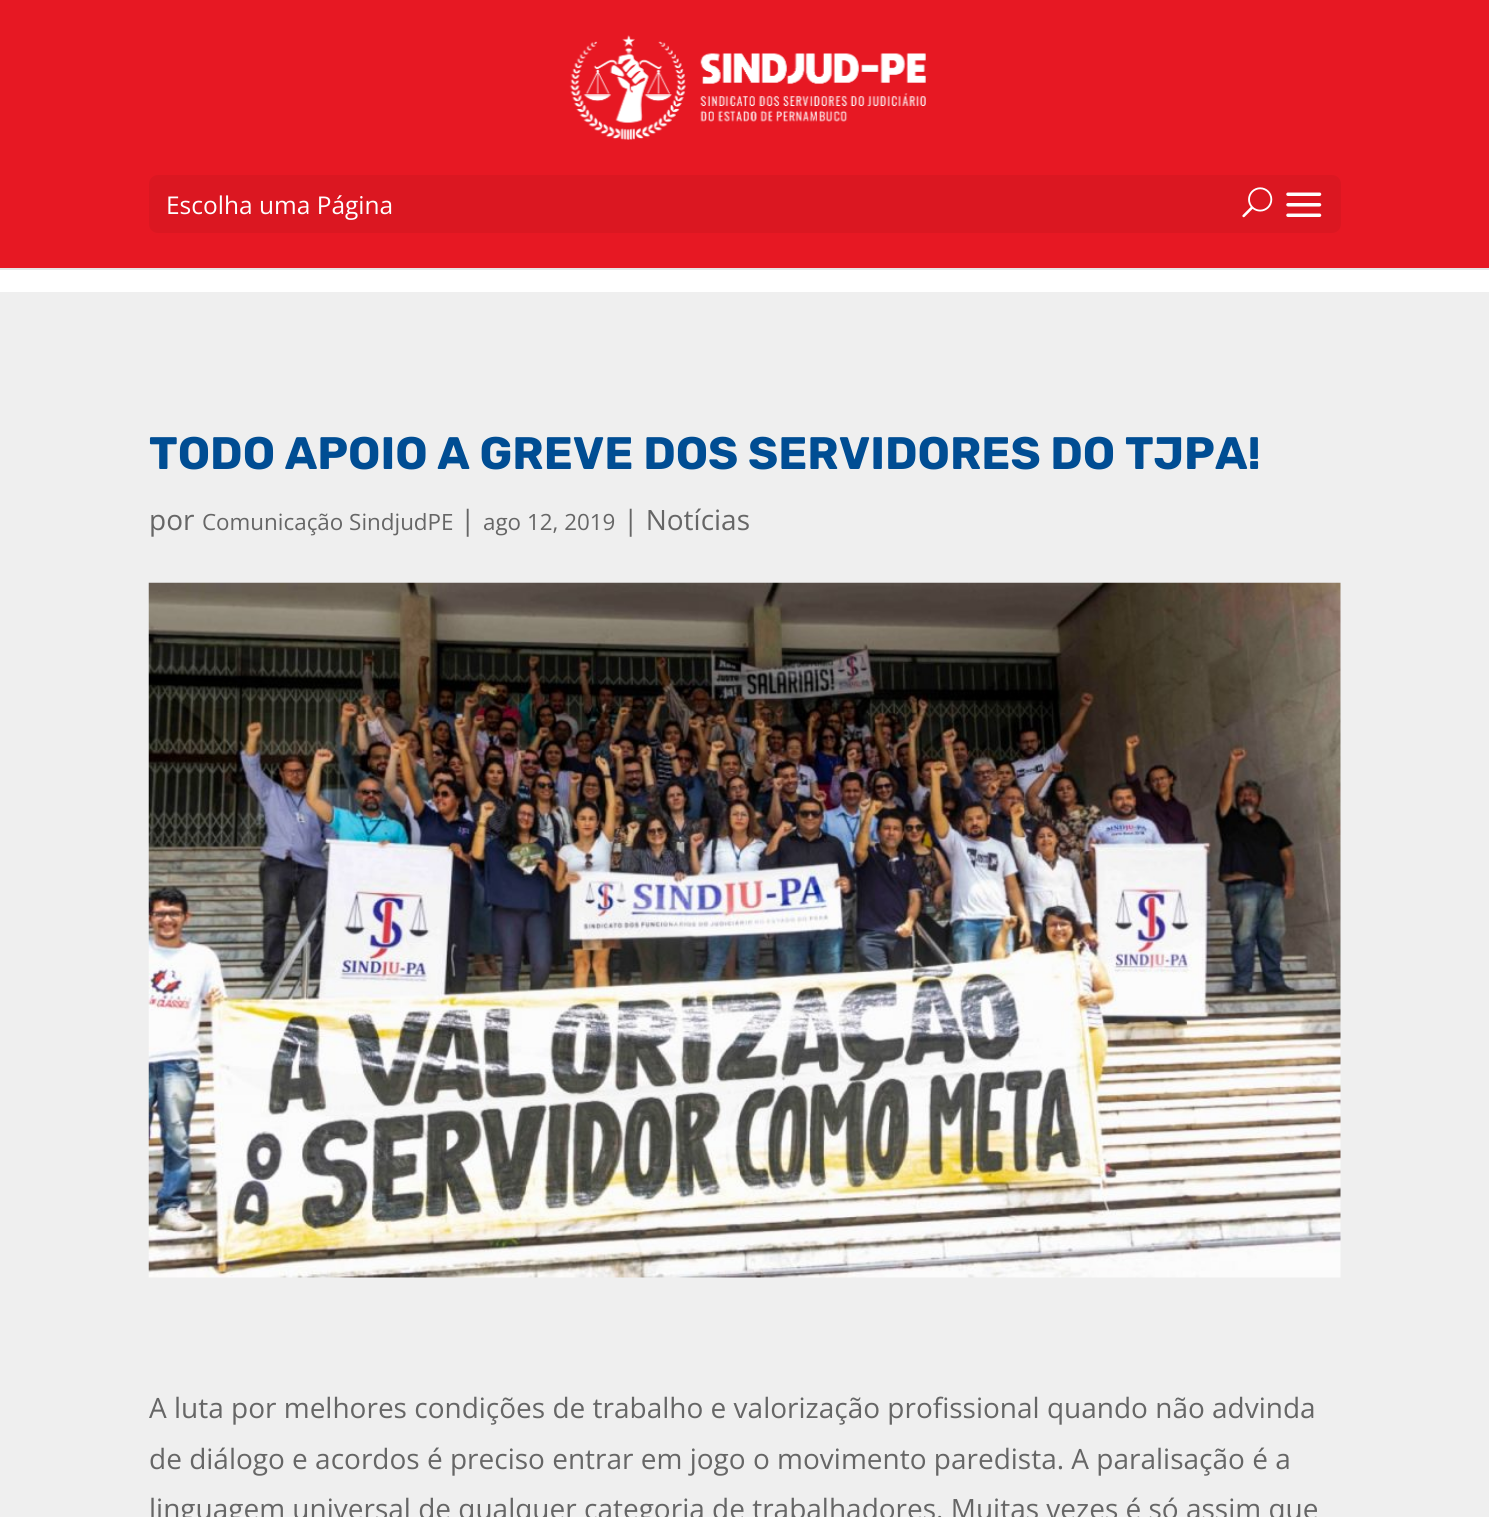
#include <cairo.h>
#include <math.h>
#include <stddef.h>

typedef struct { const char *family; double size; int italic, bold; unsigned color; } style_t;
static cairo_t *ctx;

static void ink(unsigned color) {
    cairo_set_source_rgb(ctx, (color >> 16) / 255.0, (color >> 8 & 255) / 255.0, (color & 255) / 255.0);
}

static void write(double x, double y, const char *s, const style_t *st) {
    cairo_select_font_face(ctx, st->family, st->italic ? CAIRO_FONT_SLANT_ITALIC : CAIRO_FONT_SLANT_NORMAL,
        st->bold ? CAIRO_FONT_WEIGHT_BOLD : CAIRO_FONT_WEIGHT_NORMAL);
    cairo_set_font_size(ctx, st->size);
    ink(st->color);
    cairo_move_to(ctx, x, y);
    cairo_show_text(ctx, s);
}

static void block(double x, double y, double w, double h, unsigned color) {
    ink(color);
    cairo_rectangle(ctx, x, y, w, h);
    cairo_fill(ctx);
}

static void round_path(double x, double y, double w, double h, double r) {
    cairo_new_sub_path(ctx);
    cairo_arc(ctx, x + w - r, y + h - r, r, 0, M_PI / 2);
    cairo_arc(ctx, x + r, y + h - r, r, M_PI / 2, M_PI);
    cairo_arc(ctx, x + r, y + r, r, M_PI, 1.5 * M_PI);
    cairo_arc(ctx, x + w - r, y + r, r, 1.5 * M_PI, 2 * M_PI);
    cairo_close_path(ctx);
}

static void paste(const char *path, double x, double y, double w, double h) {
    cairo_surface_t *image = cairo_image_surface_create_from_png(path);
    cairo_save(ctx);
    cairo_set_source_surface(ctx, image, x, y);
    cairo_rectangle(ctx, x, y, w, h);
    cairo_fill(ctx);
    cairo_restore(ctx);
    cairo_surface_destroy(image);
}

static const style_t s1 = {"Open Sans", 24.5, 0, 0, 0xffffff};
static const style_t s2 = {"Rubik", 45.5, 0, 1, 0x004d93};
static const style_t s3 = {"Open Sans", 28, 0, 0, 0x666666};
static const style_t s4 = {"Open Sans", 22.4, 0, 0, 0x666666};

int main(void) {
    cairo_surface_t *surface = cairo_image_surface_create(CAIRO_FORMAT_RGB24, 1489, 1517);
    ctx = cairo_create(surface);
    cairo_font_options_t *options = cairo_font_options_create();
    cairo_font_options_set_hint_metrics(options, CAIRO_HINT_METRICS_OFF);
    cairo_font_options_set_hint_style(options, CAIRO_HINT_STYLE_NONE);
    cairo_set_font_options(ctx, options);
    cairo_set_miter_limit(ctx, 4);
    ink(0xffffff);
    cairo_paint(ctx);
    block(0, 268, 1489, 2, 0xe6e6e6);
    block(0, 0, 1489, 268, 0xe71823);
    paste("pic1.png", 569, 35, 357, 105);
    ink(0xdb1721);
    round_path(149, 175, 1192, 58, 9);
    cairo_fill(ctx);
    write(166, 214, "Escolha uma Página", &s1);
    paste("pic2.png", 1286, 192, 36, 25);
    paste("pic3.png", 1242, 187, 31, 31);
    block(0, 292, 1489, 1225, 0xefefef);
    write(149, 469, "TODO APOIO A GREVE DOS SERVIDORES DO TJPA!", &s2);
    write(149, 530, "por", &s3);
    write(202, 530, "Comunicação SindjudPE", &s4);
    write(460, 530, "|", &s3);
    write(483, 530, "ago 12, 2019", &s4);
    write(623, 530, "| Notícias", &s3);
    paste("pic4.png", 148, 582, 1193, 696);
    write(149, 1418, "A luta por melhores condições de trabalho e valorização profissional quando não advinda", &s3);
    write(149, 1469, "de diálogo e acordos é preciso entrar em jogo o movimento paredista. A paralisação é a", &s3);
    write(149, 1519, "linguagem universal de qualquer categoria de trabalhadores. Muitas vezes é só assim que", &s3);
    cairo_surface_write_to_png(surface, "screenshot.png");
    cairo_font_options_destroy(options);
    cairo_destroy(ctx);
    cairo_surface_destroy(surface);
    return 0;
}
